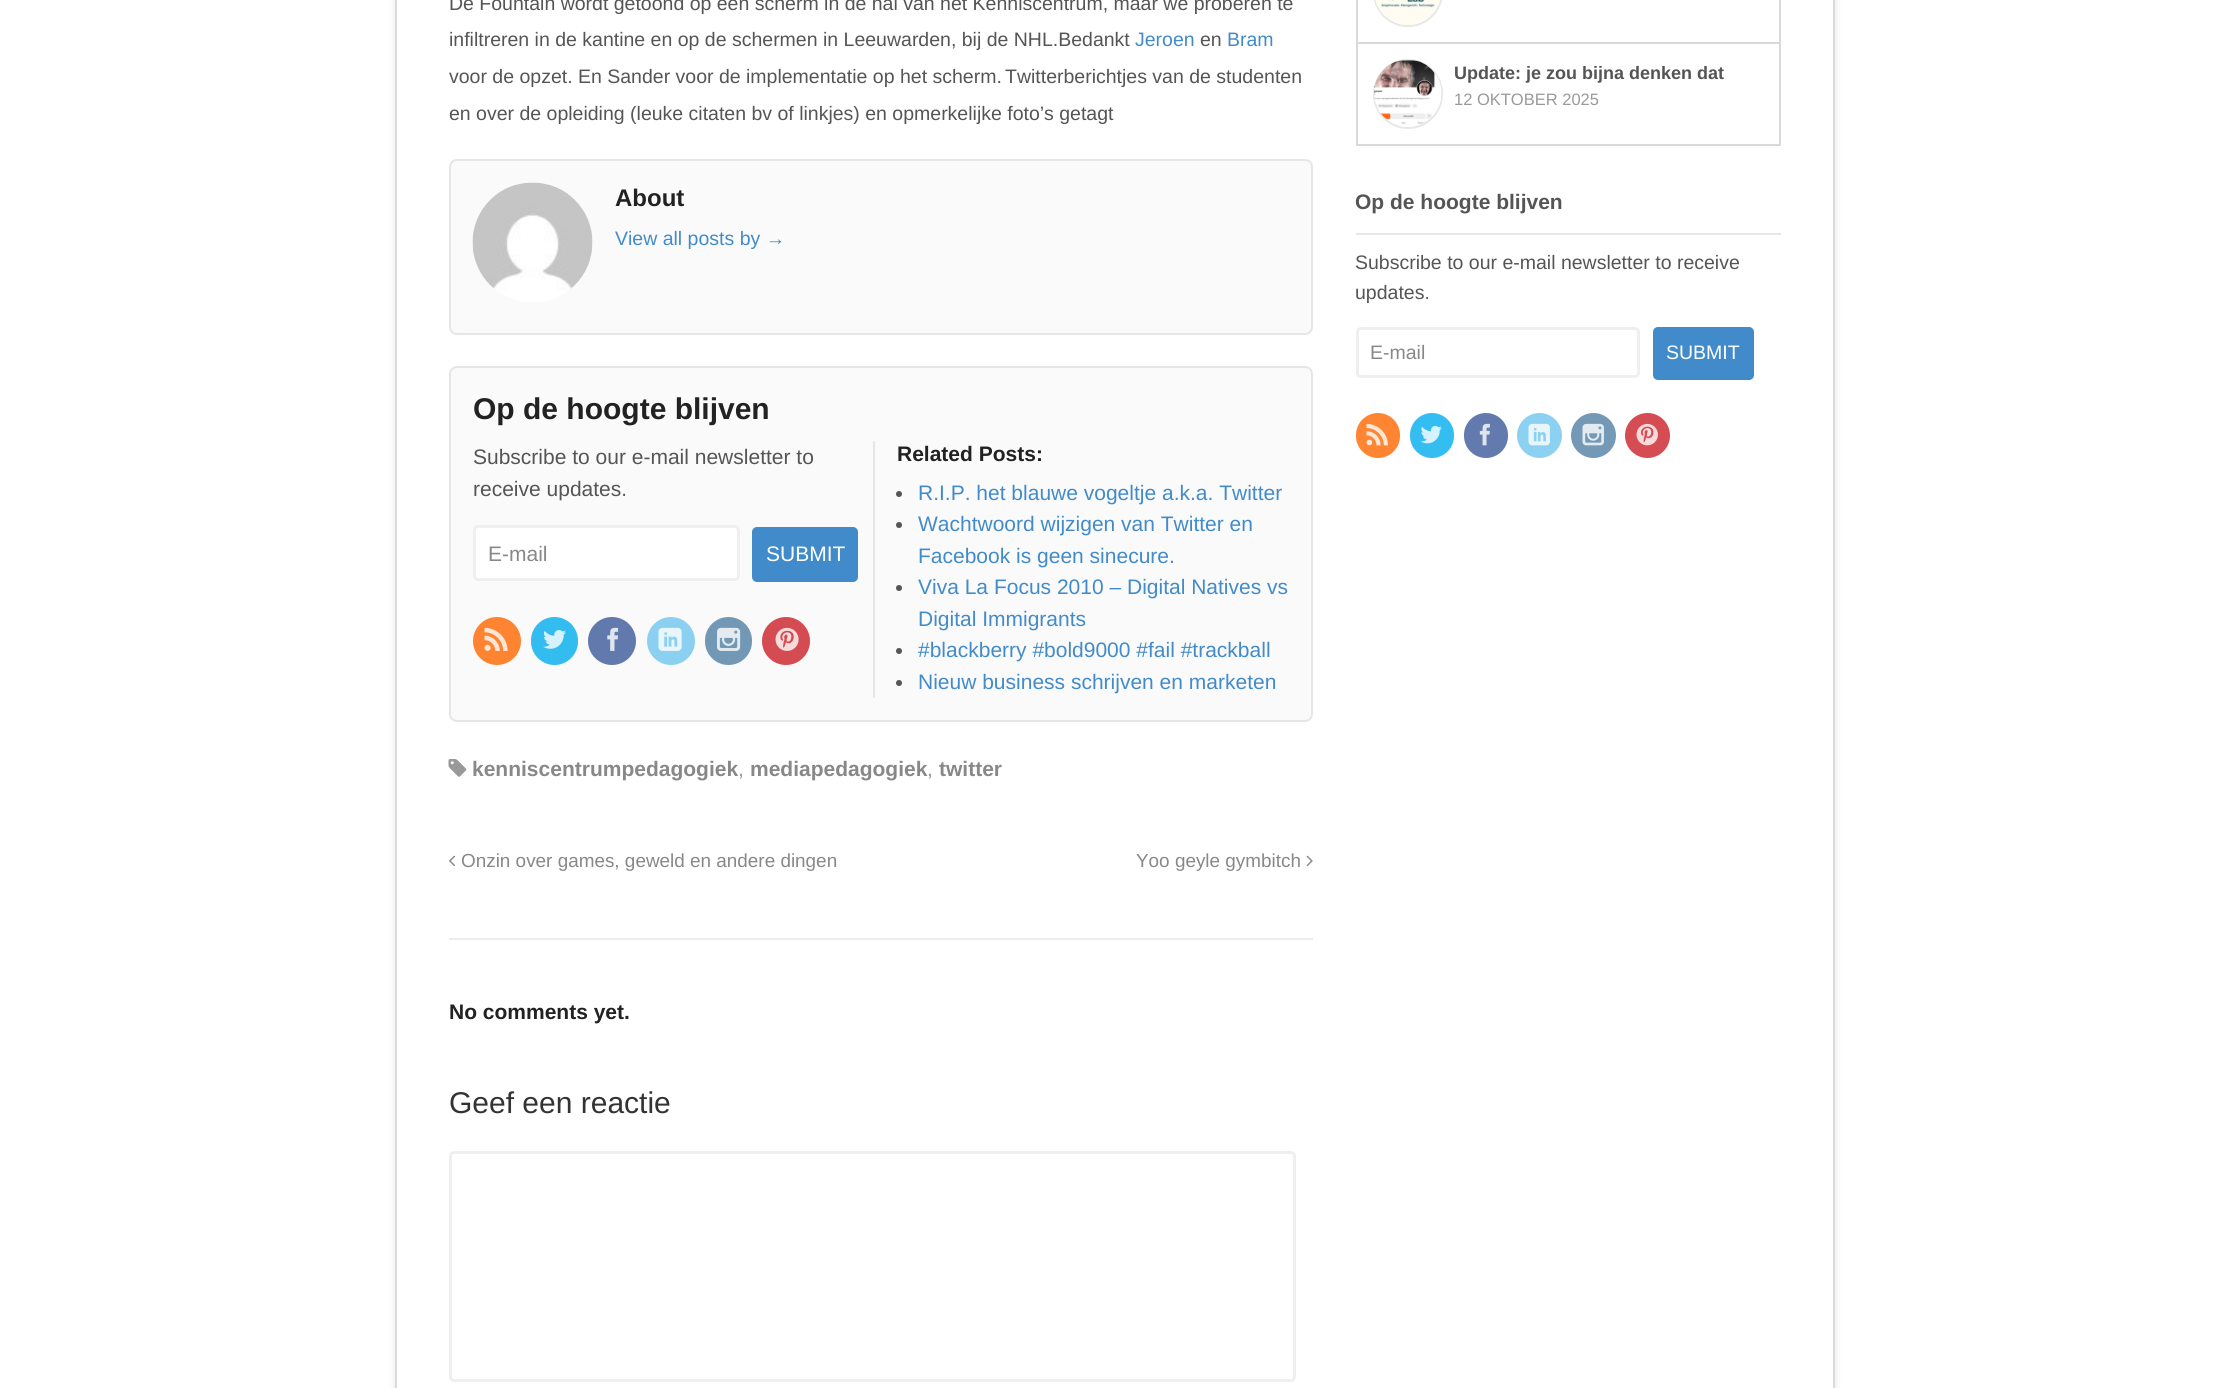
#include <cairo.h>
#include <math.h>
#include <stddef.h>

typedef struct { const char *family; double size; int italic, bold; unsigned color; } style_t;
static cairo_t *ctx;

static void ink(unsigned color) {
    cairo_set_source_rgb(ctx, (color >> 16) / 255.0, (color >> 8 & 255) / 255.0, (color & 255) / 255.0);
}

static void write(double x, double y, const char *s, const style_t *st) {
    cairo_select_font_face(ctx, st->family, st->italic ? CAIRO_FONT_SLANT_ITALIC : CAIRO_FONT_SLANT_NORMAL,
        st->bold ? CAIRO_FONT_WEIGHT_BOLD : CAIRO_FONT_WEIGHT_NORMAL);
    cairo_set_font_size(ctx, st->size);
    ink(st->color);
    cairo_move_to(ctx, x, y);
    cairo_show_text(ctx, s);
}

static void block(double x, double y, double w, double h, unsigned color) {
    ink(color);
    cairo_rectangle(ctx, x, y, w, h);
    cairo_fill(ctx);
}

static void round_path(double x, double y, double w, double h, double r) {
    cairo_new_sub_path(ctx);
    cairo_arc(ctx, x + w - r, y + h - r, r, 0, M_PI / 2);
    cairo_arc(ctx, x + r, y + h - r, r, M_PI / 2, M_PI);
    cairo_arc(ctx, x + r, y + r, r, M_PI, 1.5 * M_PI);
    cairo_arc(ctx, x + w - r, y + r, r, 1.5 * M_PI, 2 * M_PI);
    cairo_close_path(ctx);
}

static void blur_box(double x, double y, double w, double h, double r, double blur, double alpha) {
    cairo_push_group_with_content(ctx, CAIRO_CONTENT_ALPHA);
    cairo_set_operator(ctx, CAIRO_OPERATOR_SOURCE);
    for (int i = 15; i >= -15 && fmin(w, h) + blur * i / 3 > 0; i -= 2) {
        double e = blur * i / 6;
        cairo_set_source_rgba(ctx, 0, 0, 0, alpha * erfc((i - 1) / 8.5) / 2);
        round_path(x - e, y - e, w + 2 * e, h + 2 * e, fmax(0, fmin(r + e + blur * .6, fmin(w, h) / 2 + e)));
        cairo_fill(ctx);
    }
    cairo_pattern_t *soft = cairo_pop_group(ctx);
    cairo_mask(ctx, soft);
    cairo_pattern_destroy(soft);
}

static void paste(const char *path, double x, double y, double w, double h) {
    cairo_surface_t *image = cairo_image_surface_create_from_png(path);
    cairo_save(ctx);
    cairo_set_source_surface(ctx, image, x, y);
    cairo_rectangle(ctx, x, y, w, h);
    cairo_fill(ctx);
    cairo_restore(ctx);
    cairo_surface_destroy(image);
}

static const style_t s1 = {"Liberation Sans", 19.5, 0, 0, 0x555555};
static const style_t s2 = {"Liberation Sans", 19.5, 0, 0, 0x428bca};
static const style_t s3 = {"Liberation Sans", 24, 0, 1, 0x222222};
static const style_t s4 = {"Liberation Sans", 30, 0, 1, 0x222222};
static const style_t s5 = {"Liberation Sans", 21, 0, 0, 0x555555};
static const style_t s6 = {"Liberation Sans", 21, 0, 0, 0x888888};
static const style_t s7 = {"Liberation Sans", 21, 0, 0, 0xffffff};
static const style_t s8 = {"Liberation Sans", 21, 0, 1, 0x222222};
static const style_t s9 = {"Liberation Sans", 21, 0, 0, 0x428bca};
static const style_t s10 = {"Liberation Sans", 21, 0, 1, 0x888888};
static const style_t s11 = {"Liberation Sans", 21, 0, 0, 0x999999};
static const style_t s12 = {"Liberation Sans", 18.9, 0, 0, 0x888888};
static const style_t s13 = {"Liberation Sans", 30, 0, 0, 0x333333};
static const style_t s14 = {"Liberation Sans", 18, 0, 1, 0x555555};
static const style_t s15 = {"Liberation Sans", 16.5, 0, 0, 0x999999};
static const style_t s16 = {"Liberation Sans", 21, 0, 1, 0x555555};
static const style_t s17 = {"Liberation Sans", 19.5, 0, 0, 0x888888};
static const style_t s18 = {"Liberation Sans", 19.5, 0, 0, 0xffffff};

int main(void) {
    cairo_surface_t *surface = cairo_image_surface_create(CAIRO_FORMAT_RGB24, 2228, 1388);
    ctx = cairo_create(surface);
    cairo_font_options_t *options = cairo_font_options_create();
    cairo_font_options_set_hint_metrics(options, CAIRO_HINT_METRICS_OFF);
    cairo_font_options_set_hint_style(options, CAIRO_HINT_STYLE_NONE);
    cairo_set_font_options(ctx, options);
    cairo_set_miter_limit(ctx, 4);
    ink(0xffffff);
    cairo_paint(ctx);
    ink(0x000000);
    blur_box(395, -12, 1440, 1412, 0, 4, 0.1);
    ink(0xffffff);
    cairo_rectangle(ctx, 396, -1, 1438, 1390);
    cairo_fill_preserve(ctx);
    ink(0xdbdbdb);
    cairo_stroke(ctx);
    write(449, 10, "De Fountain wordt getoond op een scherm in de hal van het Kenniscentrum, maar we proberen te", &s1);
    write(449, 46, "infiltreren in de kantine en op de schermen in Leeuwarden, bij de NHL.Bedankt", &s1);
    write(1135, 46, "Jeroen", &s2);
    write(1200, 46, "en", &s1);
    write(1227, 46, "Bram", &s2);
    write(449, 83, "voor de opzet. En Sander voor de implementatie op het scherm.", &s1);
    write(1005, 83, "Twitterberichtjes van de studenten", &s1);
    write(449, 120, "en over de opleiding (leuke citaten bv of linkjes) en opmerkelijke foto’s getagt", &s1);
    ink(0xfafafa);
    round_path(450, 160, 862, 174, 7);
    cairo_fill_preserve(ctx);
    ink(0xe6e6e6);
    cairo_stroke(ctx);
    paste("pic1.png", 472, 182, 121, 120);
    write(615, 206, "About", &s3);
    write(615, 245, "View all posts by →", &s2);
    ink(0xfafafa);
    round_path(450, 367, 862, 354, 7);
    cairo_fill_preserve(ctx);
    ink(0xe6e6e6);
    cairo_stroke(ctx);
    write(473, 419, "Op de hoogte blijven", &s4);
    write(473, 464, "Subscribe to our e-mail newsletter to", &s5);
    write(473, 496, "receive updates.", &s5);
    ink(0xffffff);
    round_path(474.5, 526.5, 264, 53, 3.5);
    cairo_fill_preserve(ctx);
    ink(0xefefef);
    cairo_set_line_width(ctx, 3);
    cairo_stroke(ctx);
    write(488, 561, "E-mail", &s6);
    ink(0x428bca);
    round_path(752, 527, 106, 55, 5);
    cairo_fill(ctx);
    write(766, 561, "SUBMIT", &s7);
    ink(0xfe8432);
    cairo_new_path(ctx);
    cairo_arc(ctx, 497, 641, 24, 0, 2 * M_PI);
    cairo_fill(ctx);
    paste("pic2.png", 484, 627, 24, 24);
    ink(0x32bcf0);
    round_path(531, 617, 47, 48, 23.5);
    cairo_fill(ctx);
    paste("pic3.png", 543, 630, 23, 19);
    ink(0x6179ac);
    cairo_arc(ctx, 612, 641, 24, 0, 2 * M_PI);
    cairo_fill(ctx);
    paste("pic4.png", 607, 627, 12, 24);
    ink(0x8cd0f1);
    cairo_arc(ctx, 671, 641, 24, 0, 2 * M_PI);
    cairo_fill(ctx);
    paste("pic5.png", 658, 627, 24, 24);
    ink(0x7398b5);
    round_path(705, 617, 47, 48, 23.5);
    cairo_fill(ctx);
    paste("pic6.png", 717, 627, 24, 24);
    ink(0xd44c51);
    cairo_arc(ctx, 786, 641, 24, 0, 2 * M_PI);
    cairo_fill(ctx);
    paste("pic7.png", 775, 627, 24, 24);
    block(873, 441, 2, 257, 0xe6e6e6);
    write(897, 461, "Related Posts:", &s8);
    ink(0x555555);
    cairo_new_path(ctx);
    cairo_arc(ctx, 899, 494, 3, 0, 2 * M_PI);
    cairo_fill(ctx);
    write(918, 500, "R.I.P. het blauwe vogeltje a.k.a. Twitter", &s9);
    ink(0x555555);
    cairo_new_path(ctx);
    cairo_arc(ctx, 899, 525, 3, 0, 2 * M_PI);
    cairo_fill(ctx);
    write(918, 531, "Wachtwoord wijzigen van Twitter en", &s9);
    write(918, 563, "Facebook is geen sinecure.", &s9);
    ink(0x555555);
    cairo_new_path(ctx);
    cairo_arc(ctx, 899, 588, 3, 0, 2 * M_PI);
    cairo_fill(ctx);
    write(918, 594, "Viva La Focus 2010 – Digital Natives vs", &s9);
    write(918, 626, "Digital Immigrants", &s9);
    ink(0x555555);
    cairo_new_path(ctx);
    cairo_arc(ctx, 899, 651, 3, 0, 2 * M_PI);
    cairo_fill(ctx);
    write(918, 657, "#blackberry #bold9000 #fail #trackball", &s9);
    ink(0x555555);
    cairo_new_path(ctx);
    cairo_arc(ctx, 899, 683, 3, 0, 2 * M_PI);
    cairo_fill(ctx);
    write(918, 689, "Nieuw business schrijven en marketen", &s9);
    paste("pic8.png", 448, 759, 19, 18);
    write(472, 776, "kenniscentrumpedagogiek", &s10);
    write(738, 776, ",", &s11);
    write(750, 776, "mediapedagogiek", &s10);
    write(927, 776, ",", &s11);
    write(939, 776, "twitter", &s10);
    paste("pic9.png", 449, 855, 6, 12);
    write(461, 867, "Onzin over games, geweld en andere dingen", &s12);
    write(1136, 867, "Yoo geyle gymbitch", &s12);
    paste("pic10.png", 1306, 855, 7, 12);
    block(449, 938, 864, 2, 0xededed);
    write(449, 1019, "No comments yet.", &s8);
    write(449, 1113, "Geef een reactie", &s13);
    round_path(450.5, 1152.5, 844, 228, 3.5);
    ink(0xefefef);
    cairo_stroke(ctx);
    block(1356, 144, 425, 2, 0xd9d9d9);
    block(1779, 0, 2, 144, 0xd9d9d9);
    block(1356, 42, 425, 2, 0xd9d9d9);
    block(1356, 0, 2, 144, 0xd9d9d9);
    round_path(1374, -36, 68, 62, 34);
    ink(0xe6e6e6);
    cairo_set_line_width(ctx, 2);
    cairo_stroke(ctx);
    paste("pic11.png", 1375, 0, 65, 25);
    cairo_arc(ctx, 1408, 94, 34, 0, 2 * M_PI);
    cairo_stroke(ctx);
    paste("pic12.png", 1374, 60, 68, 67);
    write(1454, 79, "Update: je zou bijna denken dat", &s14);
    write(1454, 105, "12 OKTOBER 2025", &s15);
    block(1356, 233, 425, 2, 0xe6e6e6);
    write(1355, 209, "Op de hoogte blijven", &s16);
    write(1355, 269, "Subscribe to our e-mail newsletter to receive", &s1);
    write(1355, 299, "updates.", &s1);
    round_path(1357.5, 328.5, 281, 48, 3.5);
    ink(0xefefef);
    cairo_set_line_width(ctx, 3);
    cairo_stroke(ctx);
    write(1370, 359, "E-mail", &s17);
    ink(0x428bca);
    round_path(1653, 327, 101, 53, 5);
    cairo_fill(ctx);
    write(1666, 359, "SUBMIT", &s18);
    ink(0xff8533);
    round_path(1356, 413, 44, 45, 22);
    cairo_fill(ctx);
    paste("pic13.png", 1366, 423, 22, 23);
    ink(0x33bdf1);
    round_path(1410, 413, 44, 45, 22);
    cairo_fill(ctx);
    paste("pic14.png", 1420, 425, 22, 19);
    ink(0x627aad);
    round_path(1464, 413, 44, 45, 22);
    cairo_fill(ctx);
    paste("pic15.png", 1479, 423, 11, 23);
    ink(0x8dd1f2);
    cairo_arc(ctx, 1539.5, 435.5, 22.5, 0, 2 * M_PI);
    cairo_fill(ctx);
    paste("pic16.png", 1528, 423, 22, 23);
    ink(0x7499b6);
    cairo_arc(ctx, 1593.5, 435.5, 22.5, 0, 2 * M_PI);
    cairo_fill(ctx);
    paste("pic17.png", 1582, 423, 22, 23);
    ink(0xd54d52);
    cairo_arc(ctx, 1647.5, 435.5, 22.5, 0, 2 * M_PI);
    cairo_fill(ctx);
    paste("pic18.png", 1636, 423, 22, 23);
    cairo_surface_write_to_png(surface, "screenshot.png");
    cairo_font_options_destroy(options);
    cairo_destroy(ctx);
    cairo_surface_destroy(surface);
    return 0;
}
